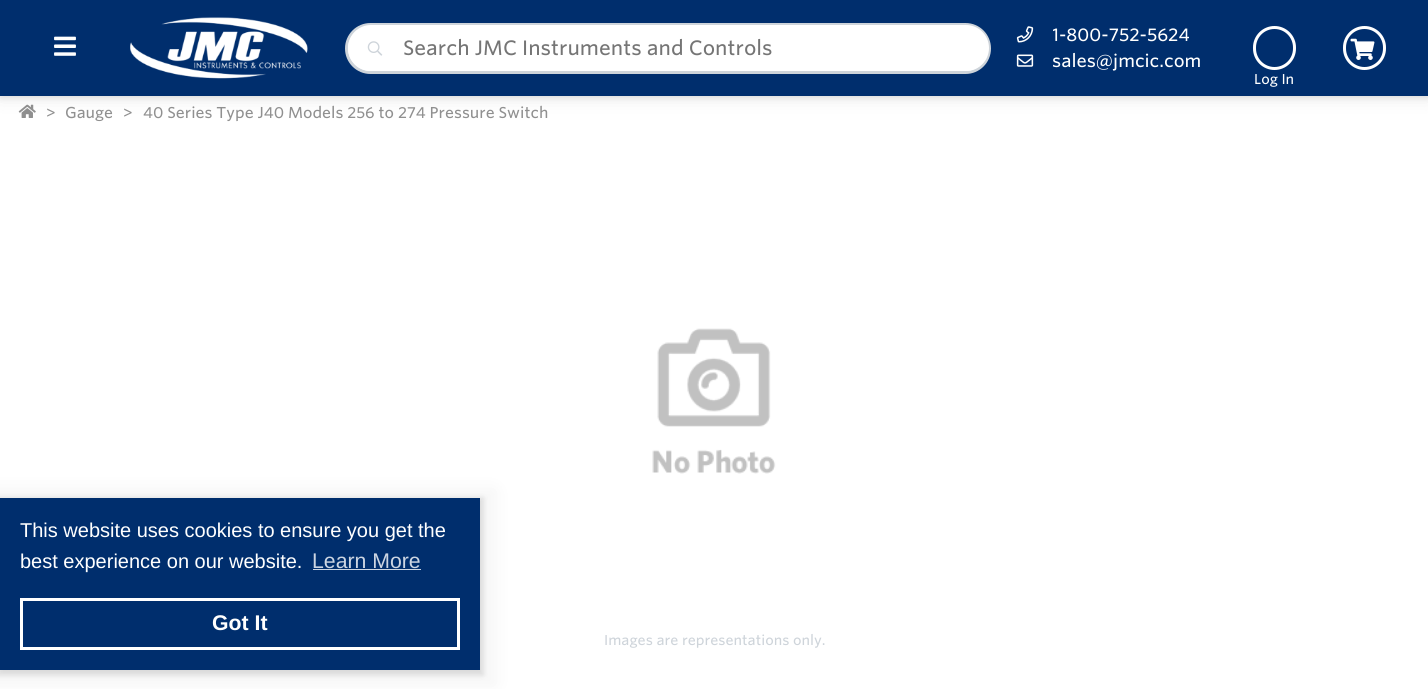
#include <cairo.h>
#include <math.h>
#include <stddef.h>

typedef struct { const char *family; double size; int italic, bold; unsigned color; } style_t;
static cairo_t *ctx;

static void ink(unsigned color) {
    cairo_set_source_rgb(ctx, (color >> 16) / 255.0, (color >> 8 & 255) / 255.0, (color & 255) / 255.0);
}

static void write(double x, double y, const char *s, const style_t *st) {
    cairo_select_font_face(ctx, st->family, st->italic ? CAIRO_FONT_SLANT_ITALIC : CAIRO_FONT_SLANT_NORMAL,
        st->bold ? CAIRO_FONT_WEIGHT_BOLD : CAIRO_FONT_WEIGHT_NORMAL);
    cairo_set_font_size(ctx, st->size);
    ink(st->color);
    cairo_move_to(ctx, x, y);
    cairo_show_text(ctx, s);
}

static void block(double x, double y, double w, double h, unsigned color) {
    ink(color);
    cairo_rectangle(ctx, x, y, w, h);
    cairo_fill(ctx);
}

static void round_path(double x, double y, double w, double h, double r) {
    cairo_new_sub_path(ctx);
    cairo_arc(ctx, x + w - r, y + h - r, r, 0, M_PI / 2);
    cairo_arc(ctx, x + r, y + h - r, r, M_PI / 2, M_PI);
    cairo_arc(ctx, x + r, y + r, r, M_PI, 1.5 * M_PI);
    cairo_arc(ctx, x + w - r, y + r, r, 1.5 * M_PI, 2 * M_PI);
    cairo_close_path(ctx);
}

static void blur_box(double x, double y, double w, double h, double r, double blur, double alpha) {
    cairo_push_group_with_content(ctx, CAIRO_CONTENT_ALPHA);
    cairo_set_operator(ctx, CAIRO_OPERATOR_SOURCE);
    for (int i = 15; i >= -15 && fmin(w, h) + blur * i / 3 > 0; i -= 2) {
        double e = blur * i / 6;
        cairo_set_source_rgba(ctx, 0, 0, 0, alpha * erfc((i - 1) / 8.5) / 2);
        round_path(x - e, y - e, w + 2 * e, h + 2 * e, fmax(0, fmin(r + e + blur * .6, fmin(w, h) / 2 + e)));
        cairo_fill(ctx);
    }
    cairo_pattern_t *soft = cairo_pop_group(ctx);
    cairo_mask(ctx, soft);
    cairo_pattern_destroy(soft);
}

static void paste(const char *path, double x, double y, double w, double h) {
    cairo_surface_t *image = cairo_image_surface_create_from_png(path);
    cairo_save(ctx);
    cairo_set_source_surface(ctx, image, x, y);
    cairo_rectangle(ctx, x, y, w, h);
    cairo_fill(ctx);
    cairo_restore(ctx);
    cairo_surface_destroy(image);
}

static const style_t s1 = {"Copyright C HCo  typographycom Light", 20, 0, 0, 0x757575};
static const style_t s2 = {"Copyright C HCo  typographycom Light", 17.5, 0, 0, 0xffffff};
static const style_t s3 = {"Copyright C HCo  typographycom Light", 13.75, 0, 0, 0xffffff};
static const style_t s4 = {"Copyright C HCo  typographycom Light", 15.2, 0, 0, 0x909090};
static const style_t s5 = {"Copyright C HCo  typographycom Light", 13.75, 0, 0, 0xced4da};
static const style_t s6 = {"Liberation Sans", 20, 0, 0, 0xffffff};
static const style_t s7 = {"Liberation Sans", 21.25, 0, 0, 0xccd5e2};
static const style_t s8 = {"Liberation Sans", 21.25, 0, 1, 0xffffff};

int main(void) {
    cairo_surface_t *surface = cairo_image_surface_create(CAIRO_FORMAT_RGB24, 1428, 689);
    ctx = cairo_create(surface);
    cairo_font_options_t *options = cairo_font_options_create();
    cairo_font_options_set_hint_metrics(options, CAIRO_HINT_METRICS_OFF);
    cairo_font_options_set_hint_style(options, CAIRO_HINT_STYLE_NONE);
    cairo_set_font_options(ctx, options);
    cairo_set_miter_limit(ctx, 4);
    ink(0xffffff);
    cairo_paint(ctx);
    paste("pic7.png", 18, 104, 18, 14);
    ink(0x000000);
    blur_box(0, 3, 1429, 96, 0, 10, 0.07);
    blur_box(0, 1, 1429, 97, 0, 3, 0.1);
    block(0, 0, 1428, 96, 0x002e6d);
    paste("pic1.png", 54, 36, 22, 20);
    paste("pic2.png", 130, 17, 178, 62);
    ink(0xffffff);
    round_path(346.5, 24.5, 643, 48, 24);
    cairo_fill_preserve(ctx);
    ink(0xced4da);
    cairo_set_line_width(ctx, 3);
    cairo_stroke(ctx);
    ink(0xffffff);
    round_path(348, 25, 641, 46, 23);
    cairo_fill(ctx);
    paste("pic3.png", 367, 41, 16, 15);
    write(403, 55, "Search JMC Instruments and Controls", &s1);
    paste("pic4.png", 1016, 26, 18, 17);
    cairo_save(ctx);
    cairo_rectangle(ctx, 1053, 23, 137, 26);
    cairo_clip(ctx);
    write(1052, 41, "1-800-752-5624", &s2);
    cairo_restore(ctx);
    paste("pic5.png", 1016, 54, 18, 13);
    write(1052, 67, "sales@jmcic.com", &s2);
    round_path(1344.5, 27.5, 40, 41, 20);
    cairo_stroke(ctx);
    paste("pic6.png", 1350, 38, 25, 22);
    round_path(1254.5, 27.5, 40, 41, 20);
    cairo_stroke(ctx);
    write(1254, 84, "Log In", &s3);
    write(46, 118, ">", &s4);
    write(65, 118, "Gauge", &s4);
    write(123, 118, ">", &s4);
    write(143, 118, "40 Series Type J40 Models 256 to 274 Pressure Switch", &s4);
    paste("pic8.png", 652, 328, 124, 146);
    write(604, 645, "Images are representations only.", &s5);
    ink(0x000000);
    blur_box(-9, 489, 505, 197, 0, 10, 0.04);
    blur_box(-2, 498, 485, 177, 0, 3, 0.12);
    block(0, 498, 480, 172, 0x002e6d);
    write(20, 537, "This website uses cookies to ensure you get the", &s6);
    write(20, 568, "best experience on our website.", &s6);
    write(312, 568, "Learn More", &s7);
    block(313, 569, 108, 1, 0xccd5e2);
    cairo_rectangle(ctx, 21.5, 599.5, 437, 49);
    ink(0xffffff);
    cairo_stroke(ctx);
    write(212, 630, "Got It", &s8);
    cairo_surface_write_to_png(surface, "screenshot.png");
    cairo_font_options_destroy(options);
    cairo_destroy(ctx);
    cairo_surface_destroy(surface);
    return 0;
}
